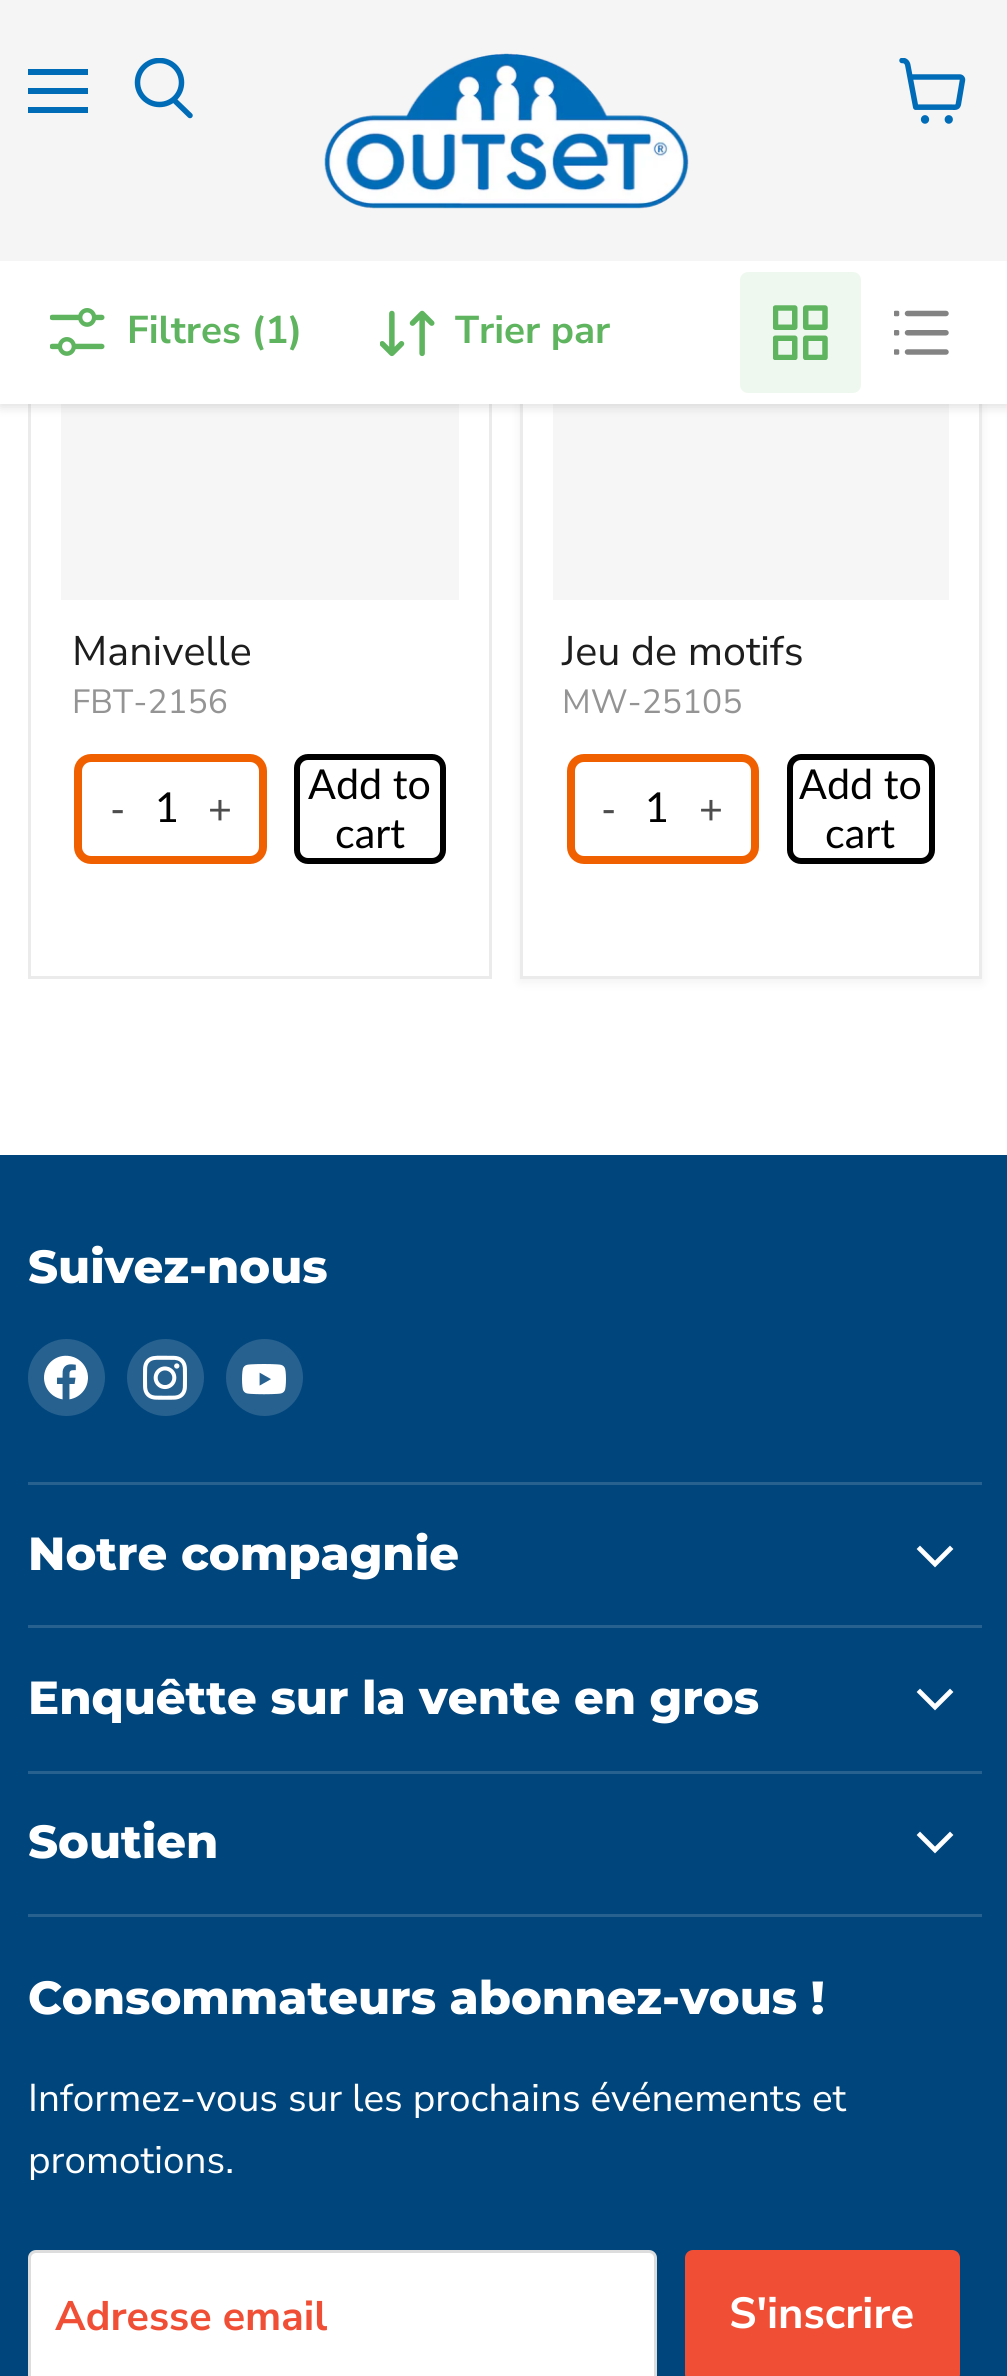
#include <cairo.h>
#include <math.h>
#include <stddef.h>

typedef struct { const char *family; double size; int italic, bold; unsigned color; } style_t;
static cairo_t *ctx;

static void ink(unsigned color) {
    cairo_set_source_rgb(ctx, (color >> 16) / 255.0, (color >> 8 & 255) / 255.0, (color & 255) / 255.0);
}

static void write(double x, double y, const char *s, const style_t *st) {
    cairo_select_font_face(ctx, st->family, st->italic ? CAIRO_FONT_SLANT_ITALIC : CAIRO_FONT_SLANT_NORMAL,
        st->bold ? CAIRO_FONT_WEIGHT_BOLD : CAIRO_FONT_WEIGHT_NORMAL);
    cairo_set_font_size(ctx, st->size);
    ink(st->color);
    cairo_move_to(ctx, x, y);
    cairo_show_text(ctx, s);
}

static void block(double x, double y, double w, double h, unsigned color) {
    ink(color);
    cairo_rectangle(ctx, x, y, w, h);
    cairo_fill(ctx);
}

static void round_path(double x, double y, double w, double h, double r) {
    cairo_new_sub_path(ctx);
    cairo_arc(ctx, x + w - r, y + h - r, r, 0, M_PI / 2);
    cairo_arc(ctx, x + r, y + h - r, r, M_PI / 2, M_PI);
    cairo_arc(ctx, x + r, y + r, r, M_PI, 1.5 * M_PI);
    cairo_arc(ctx, x + w - r, y + r, r, 1.5 * M_PI, 2 * M_PI);
    cairo_close_path(ctx);
}

static void blur_box(double x, double y, double w, double h, double r, double blur, double alpha) {
    cairo_push_group_with_content(ctx, CAIRO_CONTENT_ALPHA);
    cairo_set_operator(ctx, CAIRO_OPERATOR_SOURCE);
    for (int i = 15; i >= -15 && fmin(w, h) + blur * i / 3 > 0; i -= 2) {
        double e = blur * i / 6;
        cairo_set_source_rgba(ctx, 0, 0, 0, alpha * erfc((i - 1) / 8.5) / 2);
        round_path(x - e, y - e, w + 2 * e, h + 2 * e, fmax(0, fmin(r + e + blur * .6, fmin(w, h) / 2 + e)));
        cairo_fill(ctx);
    }
    cairo_pattern_t *soft = cairo_pop_group(ctx);
    cairo_mask(ctx, soft);
    cairo_pattern_destroy(soft);
}

static void paste(const char *path, double x, double y, double w, double h) {
    cairo_surface_t *image = cairo_image_surface_create_from_png(path);
    cairo_save(ctx);
    cairo_set_source_surface(ctx, image, x, y);
    cairo_rectangle(ctx, x, y, w, h);
    cairo_fill(ctx);
    cairo_restore(ctx);
    cairo_surface_destroy(image);
}

static const style_t s1 = {"Nunito Sans", 38.7, 0, 1, 0x5fb45f};
static const style_t s2 = {"Nunito Sans", 41.25, 0, 0, 0x1d1d1d};
static const style_t s3 = {"Nunito Sans", 33.5, 0, 0, 0x949494};
static const style_t s4 = {"Lato", 41.25, 0, 0, 0x4d4d4d};
static const style_t s5 = {"Lato", 41.25, 0, 0, 0x000000};
static const style_t s6 = {"Montserrat ExtraBold", 46.4, 0, 0, 0xffffff};
static const style_t s7 = {"Nunito Sans", 38.7, 0, 0, 0xffffff};
static const style_t s8 = {"Nunito Sans", 41.25, 0, 1, 0xf04f36};
static const style_t s9 = {"Nunito Sans", 43.5, 0, 1, 0xffffff};

int main(void) {
    cairo_surface_t *surface = cairo_image_surface_create(CAIRO_FORMAT_RGB24, 1007, 2376);
    ctx = cairo_create(surface);
    cairo_font_options_t *options = cairo_font_options_create();
    cairo_font_options_set_hint_metrics(options, CAIRO_HINT_METRICS_OFF);
    cairo_font_options_set_hint_style(options, CAIRO_HINT_STYLE_NONE);
    cairo_set_font_options(ctx, options);
    cairo_set_miter_limit(ctx, 4);
    ink(0xffffff);
    cairo_paint(ctx);
    cairo_rectangle(ctx, 29.5, 169.5, 461, 808);
    ink(0xebebeb);
    cairo_set_line_width(ctx, 3);
    cairo_stroke(ctx);
    block(61, 404, 398, 196, 0xf6f6f6);
    ink(0x808080);
    blur_box(520, 171, 462, 811, 0, 5.5, 0.11);
    block(523, 404, 456, 572, 0xffffff);
    cairo_rectangle(ctx, 521.5, 169.5, 459, 808);
    ink(0xebebeb);
    cairo_stroke(ctx);
    block(553, 404, 396, 196, 0xf6f6f6);
    ink(0x808080);
    blur_box(0, 264, 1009, 143, 0, 5.5, 0.25);
    block(0, 0, 1007, 261, 0xf5f5f5);
    block(28, 69, 60, 6, 0x006cb7);
    block(28, 88, 60, 6, 0x006cb7);
    block(28, 107, 60, 6, 0x006cb7);
    cairo_new_path(ctx);
    cairo_move_to(ctx, 190, 115.5);
    cairo_line_to(ctx, 174.5, 100.5);
    cairo_set_line_width(ctx, 5.5);
    cairo_set_line_cap(ctx, CAIRO_LINE_CAP_ROUND);
    cairo_stroke(ctx);
    cairo_save(ctx);
    cairo_rectangle(ctx, 132, 58, 63, 66);
    cairo_clip(ctx);
    cairo_arc(ctx, 159.5, 82.5, 22, 0, 2 * M_PI);
    cairo_set_line_cap(ctx, CAIRO_LINE_CAP_BUTT);
    cairo_stroke(ctx);
    cairo_restore(ctx);
    paste("pic1.png", 324, 53, 365, 156);
    paste("pic2.png", 899, 58, 67, 66);
    block(0, 261, 1007, 143, 0xffffff);
    paste("pic3.png", 50, 308, 55, 48);
    write(127, 343, "Filtres (1)", &s1);
    paste("pic4.png", 380, 310, 55, 47);
    write(455, 343, "Trier par", &s1);
    ink(0xeff8ef);
    round_path(740, 272, 121, 121, 8);
    cairo_fill(ctx);
    paste("pic5.png", 773, 305, 55, 55);
    paste("pic6.png", 894, 310, 55, 45);
    write(72, 665, "Manivelle", &s2);
    write(72, 713, "FBT-2156", &s3);
    round_path(78, 758, 185, 102, 13);
    ink(0xf06000);
    cairo_set_line_width(ctx, 8);
    cairo_set_line_cap(ctx, CAIRO_LINE_CAP_BUTT);
    cairo_stroke(ctx);
    write(110, 824, "-", &s4);
    write(155, 822, "1", &s5);
    write(208, 824, "+", &s4);
    round_path(297, 757, 146, 104, 11);
    ink(0x000000);
    cairo_set_line_width(ctx, 6);
    cairo_stroke(ctx);
    write(308, 799, "Add to", &s5);
    write(335, 848, "cart", &s5);
    write(562, 665, "Jeu de motifs", &s2);
    write(562, 713, "MW-25105", &s3);
    round_path(571, 758, 184, 102, 13);
    ink(0xf06000);
    cairo_set_line_width(ctx, 8);
    cairo_stroke(ctx);
    write(601, 824, "-", &s4);
    write(645, 822, "1", &s5);
    write(699, 824, "+", &s4);
    round_path(790, 757, 142, 104, 11);
    ink(0x000000);
    cairo_set_line_width(ctx, 6);
    cairo_stroke(ctx);
    write(799, 799, "Add to", &s5);
    write(825, 848, "cart", &s5);
    block(0, 1155, 1007, 1221, 0x00457c);
    block(28, 1482, 954, 3, 0x266190);
    write(28, 1283, "Suivez-nous", &s6);
    ink(0x266190);
    cairo_new_path(ctx);
    cairo_arc(ctx, 66.5, 1377.5, 38.5, 0, 2 * M_PI);
    cairo_fill(ctx);
    paste("pic7.png", 44, 1355, 44, 45);
    cairo_arc(ctx, 165.5, 1377.5, 38.5, 0, 2 * M_PI);
    cairo_fill(ctx);
    paste("pic8.png", 143, 1355, 44, 45);
    cairo_arc(ctx, 264.5, 1377.5, 38.5, 0, 2 * M_PI);
    cairo_fill(ctx);
    paste("pic9.png", 242, 1364, 44, 31);
    block(28, 1625, 954, 3, 0x266190);
    write(28, 1570, "Notre compagnie", &s6);
    cairo_new_path(ctx);
    cairo_move_to(ctx, 935, 1564);
    cairo_line_to(ctx, 950, 1549);
    cairo_move_to(ctx, 935, 1564);
    cairo_line_to(ctx, 920, 1549);
    cairo_set_line_width(ctx, 4.8);
    cairo_set_line_cap(ctx, CAIRO_LINE_CAP_SQUARE);
    cairo_stroke(ctx);
    block(28, 1771, 954, 3, 0x266190);
    write(28, 1714, "Enquêtte sur la vente en gros", &s6);
    cairo_new_path(ctx);
    cairo_move_to(ctx, 935, 1707);
    cairo_line_to(ctx, 950, 1692);
    cairo_move_to(ctx, 935, 1707);
    cairo_line_to(ctx, 920, 1692);
    cairo_stroke(ctx);
    block(28, 1914, 954, 3, 0x266190);
    write(28, 1858, "Soutien", &s6);
    cairo_new_path(ctx);
    cairo_move_to(ctx, 935, 1850);
    cairo_line_to(ctx, 950, 1835);
    cairo_move_to(ctx, 935, 1850);
    cairo_line_to(ctx, 920, 1835);
    cairo_stroke(ctx);
    write(28, 2014, "Consommateurs abonnez-vous !", &s6);
    write(28, 2111, "Informez-vous sur les prochains événements et", &s7);
    write(28, 2173, "promotions.", &s7);
    round_path(29.5, 2251.5, 626, 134, 6.5);
    cairo_fill_preserve(ctx);
    ink(0xdddddd);
    cairo_set_line_width(ctx, 3);
    cairo_set_line_cap(ctx, CAIRO_LINE_CAP_BUTT);
    cairo_stroke(ctx);
    write(55, 2330, "Adresse email", &s8);
    round_path(686.5, 2251.5, 272, 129, 6.5);
    cairo_fill_preserve(ctx);
    cairo_stroke(ctx);
    write(729, 2328, "S'inscrire", &s9);
    cairo_surface_write_to_png(surface, "screenshot.png");
    cairo_font_options_destroy(options);
    cairo_destroy(ctx);
    cairo_surface_destroy(surface);
    return 0;
}
